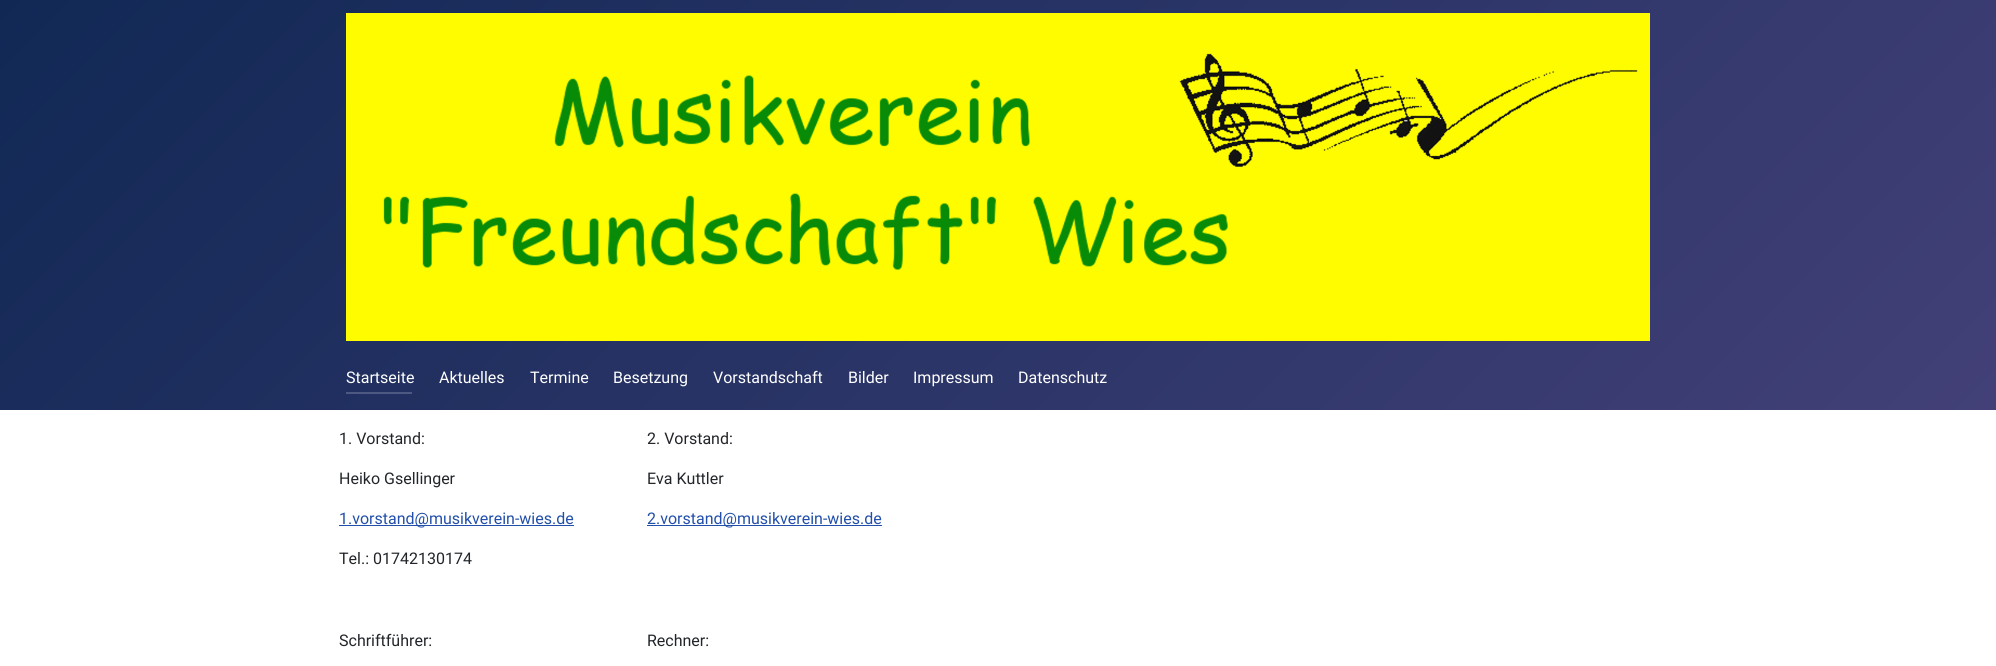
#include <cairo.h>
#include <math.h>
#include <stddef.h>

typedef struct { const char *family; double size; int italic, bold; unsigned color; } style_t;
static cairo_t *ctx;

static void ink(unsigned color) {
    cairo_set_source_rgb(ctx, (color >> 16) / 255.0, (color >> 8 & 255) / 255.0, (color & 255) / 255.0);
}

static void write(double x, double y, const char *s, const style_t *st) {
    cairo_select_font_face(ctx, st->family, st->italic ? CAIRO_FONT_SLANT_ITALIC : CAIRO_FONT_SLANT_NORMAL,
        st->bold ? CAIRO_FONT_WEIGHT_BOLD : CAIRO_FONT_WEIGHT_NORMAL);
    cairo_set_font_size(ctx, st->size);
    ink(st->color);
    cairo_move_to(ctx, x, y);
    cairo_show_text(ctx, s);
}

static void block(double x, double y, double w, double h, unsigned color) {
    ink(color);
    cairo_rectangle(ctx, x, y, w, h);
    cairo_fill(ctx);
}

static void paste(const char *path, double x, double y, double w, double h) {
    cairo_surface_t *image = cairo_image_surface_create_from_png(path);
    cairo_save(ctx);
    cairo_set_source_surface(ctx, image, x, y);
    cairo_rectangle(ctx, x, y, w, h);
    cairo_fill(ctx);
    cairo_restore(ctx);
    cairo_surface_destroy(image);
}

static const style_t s1 = {"Roboto", 16, 0, 0, 0xffffff};
static const style_t s2 = {"Roboto", 16, 0, 0, 0x22262a};
static const style_t s3 = {"Roboto", 16, 0, 0, 0x224faa};

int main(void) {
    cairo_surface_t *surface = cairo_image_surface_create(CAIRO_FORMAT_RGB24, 1996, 666);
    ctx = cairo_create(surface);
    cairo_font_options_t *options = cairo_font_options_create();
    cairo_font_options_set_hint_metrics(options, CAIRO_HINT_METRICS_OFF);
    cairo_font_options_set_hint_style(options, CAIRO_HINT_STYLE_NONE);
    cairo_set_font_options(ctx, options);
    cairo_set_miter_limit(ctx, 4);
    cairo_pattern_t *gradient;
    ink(0xffffff);
    cairo_paint(ctx);
    gradient = cairo_pattern_create_linear(397, -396, 1600, 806);
    cairo_pattern_add_color_stop_rgba(gradient, 0, 0.067, 0.157, 0.333, 1);
    cairo_pattern_add_color_stop_rgba(gradient, 1, 0.259, 0.251, 0.467, 1);
    cairo_set_source(ctx, gradient);
    cairo_pattern_destroy(gradient);
    cairo_rectangle(ctx, 0, 0, 1996, 410);
    cairo_fill(ctx);
    paste("pic1.png", 346, 13, 1304, 328);
    write(346, 383, "Startseite", &s1);
    block(346, 392, 66, 2, 0x4d5980);
    write(439, 383, "Aktuelles", &s1);
    write(530, 383, "Termine", &s1);
    write(613, 383, "Besetzung", &s1);
    write(713, 383, "Vorstandschaft", &s1);
    write(848, 383, "Bilder", &s1);
    write(913, 383, "Impressum", &s1);
    write(1018, 383, "Datenschutz", &s1);
    write(339, 444, "1. Vorstand:", &s2);
    write(339, 484, "Heiko Gsellinger", &s2);
    block(339, 525, 235, 1, 0x224faa);
    write(339, 524, "1.vorstand@musikverein-wies.de", &s3);
    write(339, 564, "Tel.: 01742130174", &s2);
    write(647, 444, "2. Vorstand:", &s2);
    write(647, 484, "Eva Kuttler", &s2);
    block(647, 525, 235, 1, 0x224faa);
    write(647, 524, "2.vorstand@musikverein-wies.de", &s3);
    write(339, 646, "Schriftführer:", &s2);
    write(647, 646, "Rechner:", &s2);
    cairo_surface_write_to_png(surface, "screenshot.png");
    cairo_font_options_destroy(options);
    cairo_destroy(ctx);
    cairo_surface_destroy(surface);
    return 0;
}
